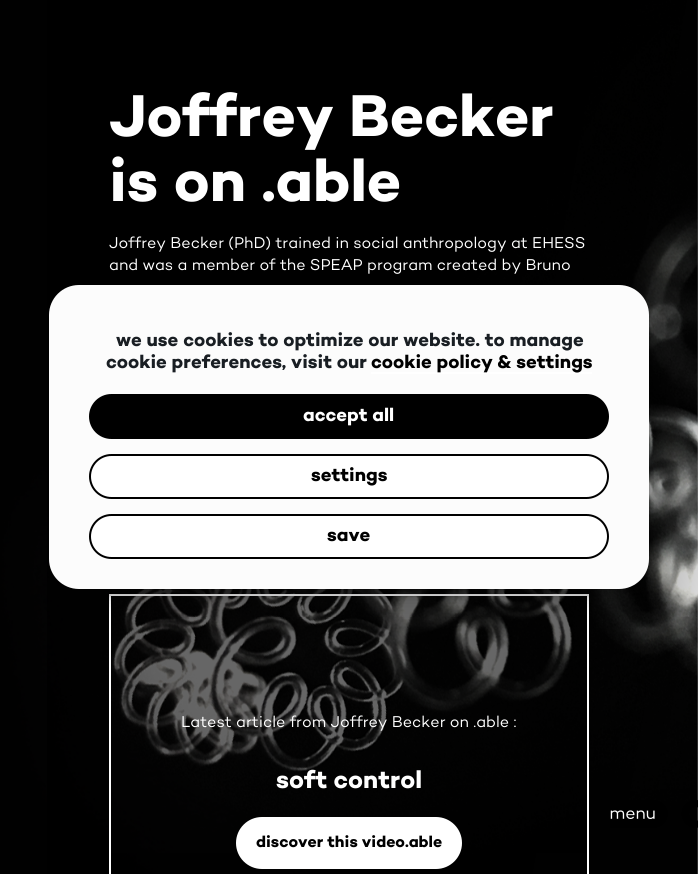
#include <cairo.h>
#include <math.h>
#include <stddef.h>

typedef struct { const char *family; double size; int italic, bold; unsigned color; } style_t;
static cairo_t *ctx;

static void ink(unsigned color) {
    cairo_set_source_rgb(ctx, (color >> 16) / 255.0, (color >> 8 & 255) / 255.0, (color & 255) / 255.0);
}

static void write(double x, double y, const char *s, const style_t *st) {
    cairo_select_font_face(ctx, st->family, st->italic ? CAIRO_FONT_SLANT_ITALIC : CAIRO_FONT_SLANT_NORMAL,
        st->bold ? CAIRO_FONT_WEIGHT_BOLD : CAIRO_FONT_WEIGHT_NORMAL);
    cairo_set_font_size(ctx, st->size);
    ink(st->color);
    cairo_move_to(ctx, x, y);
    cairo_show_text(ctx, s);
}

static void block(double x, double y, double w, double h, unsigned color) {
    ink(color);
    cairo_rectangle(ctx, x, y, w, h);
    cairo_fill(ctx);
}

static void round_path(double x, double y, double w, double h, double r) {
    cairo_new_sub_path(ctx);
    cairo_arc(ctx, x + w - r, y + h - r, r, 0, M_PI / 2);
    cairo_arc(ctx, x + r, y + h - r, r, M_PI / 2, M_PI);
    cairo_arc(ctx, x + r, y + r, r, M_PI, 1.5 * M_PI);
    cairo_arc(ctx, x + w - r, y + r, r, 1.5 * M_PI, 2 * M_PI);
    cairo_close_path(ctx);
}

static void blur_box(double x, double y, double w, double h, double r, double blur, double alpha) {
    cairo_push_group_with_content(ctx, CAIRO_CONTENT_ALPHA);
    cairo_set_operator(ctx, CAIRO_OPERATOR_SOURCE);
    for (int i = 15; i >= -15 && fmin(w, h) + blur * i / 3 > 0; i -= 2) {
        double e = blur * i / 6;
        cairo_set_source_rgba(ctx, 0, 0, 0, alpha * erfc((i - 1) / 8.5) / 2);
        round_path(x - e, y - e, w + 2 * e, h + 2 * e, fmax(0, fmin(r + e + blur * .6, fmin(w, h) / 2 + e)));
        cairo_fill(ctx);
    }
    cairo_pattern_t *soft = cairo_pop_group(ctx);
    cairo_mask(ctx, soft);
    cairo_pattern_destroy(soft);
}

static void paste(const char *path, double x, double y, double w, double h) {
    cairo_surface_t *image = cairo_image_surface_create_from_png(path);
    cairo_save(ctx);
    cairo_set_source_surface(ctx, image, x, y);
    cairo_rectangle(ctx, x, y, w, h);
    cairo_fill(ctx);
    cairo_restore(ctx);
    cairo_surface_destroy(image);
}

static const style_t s1 = {"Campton", 60, 0, 1, 0xffffff};
static const style_t s2 = {"Campton", 16, 0, 0, 0xffffff};
static const style_t s3 = {"Campton", 25, 0, 1, 0xffffff};
static const style_t s4 = {"Campton", 16, 0, 1, 0x000000};
static const style_t s5 = {"Campton", 18.7, 0, 1, 0x191e23};
static const style_t s6 = {"Campton", 18.7, 0, 1, 0x000000};
static const style_t s7 = {"Campton", 18.7, 0, 1, 0xffffff};

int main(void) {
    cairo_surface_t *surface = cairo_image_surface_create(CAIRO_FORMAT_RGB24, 698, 874);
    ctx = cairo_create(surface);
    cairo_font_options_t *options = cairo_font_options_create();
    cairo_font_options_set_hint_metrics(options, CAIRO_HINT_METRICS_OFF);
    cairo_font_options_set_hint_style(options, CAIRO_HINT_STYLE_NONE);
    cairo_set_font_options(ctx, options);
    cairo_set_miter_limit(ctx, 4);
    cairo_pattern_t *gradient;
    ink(0xffffff);
    cairo_paint(ctx);
    paste("pic1.png", 0, 0, 698, 874);
    gradient = cairo_pattern_create_linear(-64, 364, 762, 510);
    cairo_pattern_add_color_stop_rgba(gradient, 0.69, 0, 0, 0, 0.8);
    cairo_pattern_add_color_stop_rgba(gradient, 1, 0, 0, 0, 0);
    cairo_set_source(ctx, gradient);
    cairo_pattern_destroy(gradient);
    cairo_rectangle(ctx, 47, 0, 651, 874);
    cairo_fill(ctx);
    write(109, 136, "Joffrey Becker", &s1);
    write(109, 201, "is on .able", &s1);
    write(109, 248, "Joffrey Becker (PhD) trained in social anthropology at EHESS", &s2);
    write(109, 270, "and was a member of the SPEAP program created by Bruno", &s2);
    cairo_rectangle(ctx, 110, 595, 478, 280);
    cairo_stroke(ctx);
    paste("pic2.png", 111, 596, 476, 257);
    cairo_set_source_rgba(ctx, 0, 0, 0, 0.6);
    cairo_rectangle(ctx, 111, 596, 476, 257);
    cairo_fill(ctx);
    write(181, 727, "Latest article from Joffrey Becker on .able :", &s2);
    write(276, 788, "soft control", &s3);
    round_path(236, 817, 226, 52, 26);
    cairo_fill(ctx);
    write(256, 847, "discover this video.able", &s4);
    paste("pic3.png", 610, 800, 88, 28);
    ink(0x000000);
    blur_box(49, 291, 600, 304, 30, 3, 0.23);
    blur_box(49, 295, 600, 304, 30, 10, 0.19);
    ink(0xfcfcfc);
    round_path(49, 285, 600, 304, 30);
    cairo_fill(ctx);
    write(116, 346, "we use cookies to optimize our website. to manage", &s5);
    write(106, 368, "cookie preferences, visit our", &s5);
    block(371, 372, 221, 2, 0xffffff);
    write(371, 368, "cookie policy & settings", &s6);
    round_path(90, 395, 518, 43, 21.5);
    cairo_fill_preserve(ctx);
    cairo_stroke(ctx);
    write(303, 421, "accept all", &s7);
    round_path(90, 455, 518, 43, 21.5);
    cairo_fill_preserve(ctx);
    ink(0x000000);
    cairo_stroke(ctx);
    write(311, 481, "settings", &s6);
    ink(0xffffff);
    round_path(90, 515, 518, 43, 21.5);
    cairo_fill_preserve(ctx);
    ink(0x000000);
    cairo_stroke(ctx);
    write(327, 541, "save", &s6);
    cairo_surface_write_to_png(surface, "screenshot.png");
    cairo_font_options_destroy(options);
    cairo_destroy(ctx);
    cairo_surface_destroy(surface);
    return 0;
}
